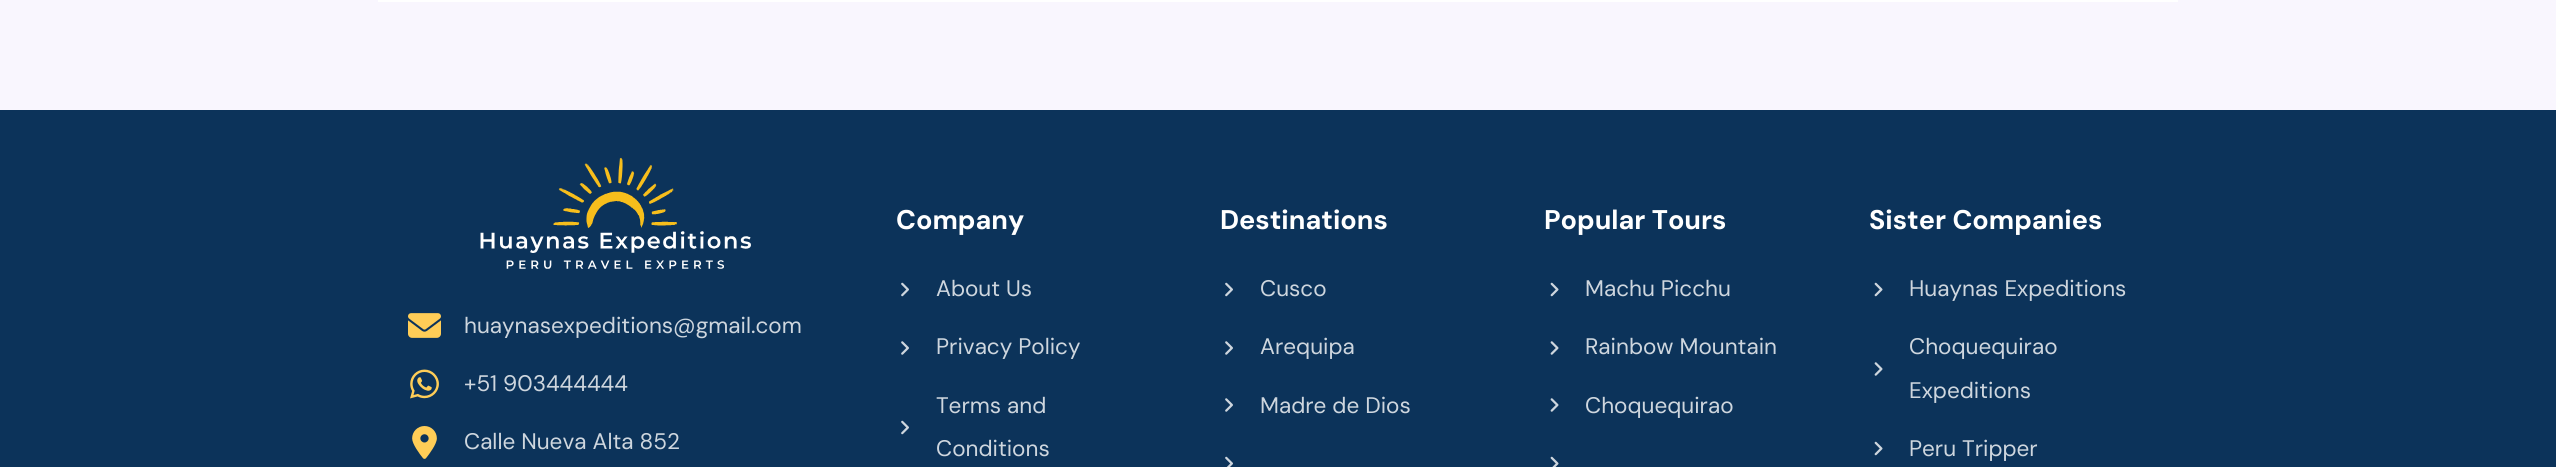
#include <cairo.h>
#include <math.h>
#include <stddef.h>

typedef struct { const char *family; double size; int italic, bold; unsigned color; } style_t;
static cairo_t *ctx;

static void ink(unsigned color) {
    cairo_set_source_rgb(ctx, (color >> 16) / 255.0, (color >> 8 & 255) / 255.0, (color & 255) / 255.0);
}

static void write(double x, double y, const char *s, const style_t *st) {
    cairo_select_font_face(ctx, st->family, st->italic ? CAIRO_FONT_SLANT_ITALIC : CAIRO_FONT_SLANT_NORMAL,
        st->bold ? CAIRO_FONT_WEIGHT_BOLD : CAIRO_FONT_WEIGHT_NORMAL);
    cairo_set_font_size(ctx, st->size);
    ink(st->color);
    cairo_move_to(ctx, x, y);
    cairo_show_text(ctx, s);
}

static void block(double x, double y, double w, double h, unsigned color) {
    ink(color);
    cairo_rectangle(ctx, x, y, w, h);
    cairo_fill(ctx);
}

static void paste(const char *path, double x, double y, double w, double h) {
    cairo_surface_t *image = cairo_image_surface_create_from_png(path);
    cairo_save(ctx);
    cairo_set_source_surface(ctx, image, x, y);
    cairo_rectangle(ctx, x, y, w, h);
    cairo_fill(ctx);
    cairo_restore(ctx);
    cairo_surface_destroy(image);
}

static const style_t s1 = {"DM Sans", 22.5, 0, 0, 0xced6de};
static const style_t s2 = {"DM Sans", 27, 0, 1, 0xffffff};

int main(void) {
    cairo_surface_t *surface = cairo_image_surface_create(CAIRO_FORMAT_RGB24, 2556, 467);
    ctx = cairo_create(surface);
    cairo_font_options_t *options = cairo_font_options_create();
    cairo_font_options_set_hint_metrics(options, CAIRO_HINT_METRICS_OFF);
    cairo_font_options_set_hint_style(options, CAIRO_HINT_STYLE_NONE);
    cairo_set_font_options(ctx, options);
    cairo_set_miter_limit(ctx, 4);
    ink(0xf9f6fe);
    cairo_paint(ctx);
    block(378, 0, 1800, 2, 0xffffff);
    block(0, 110, 2556, 357, 0x0c335a);
    paste("pic1.png", 480, 157, 271, 112);
    paste("pic2.png", 408, 313, 33, 25);
    write(464, 333, "huaynasexpeditions@gmail.com", &s1);
    paste("pic3.png", 410, 369, 29, 30);
    write(464, 391, "+51 903444444", &s1);
    paste("pic4.png", 412, 426, 25, 33);
    write(464, 449, "Calle Nueva Alta 852", &s1);
    write(896, 229, "Company", &s2);
    paste("pic5.png", 901, 282, 8, 15);
    write(936, 296, "About Us", &s1);
    paste("pic6.png", 901, 341, 8, 14);
    write(936, 354, "Privacy Policy", &s1);
    paste("pic5.png", 901, 420, 8, 15);
    write(936, 413, "Terms and", &s1);
    write(936, 456, "Conditions", &s1);
    write(1220, 229, "Destinations", &s2);
    paste("pic5.png", 1225, 282, 8, 15);
    write(1260, 296, "Cusco", &s1);
    paste("pic6.png", 1225, 341, 8, 14);
    write(1260, 354, "Arequipa", &s1);
    paste("pic6.png", 1225, 398, 8, 14);
    write(1260, 413, "Madre de Dios", &s1);
    paste("pic7.png", 1225, 456, 8, 11);
    write(1544, 229, "Popular Tours", &s2);
    paste("pic8.png", 1550, 282, 9, 15);
    write(1585, 296, "Machu Picchu", &s1);
    paste("pic9.png", 1550, 341, 9, 14);
    write(1585, 354, "Rainbow Mountain", &s1);
    paste("pic9.png", 1550, 398, 9, 14);
    write(1585, 413, "Choquequirao", &s1);
    paste("pic10.png", 1550, 456, 9, 11);
    write(1869, 229, "Sister Companies", &s2);
    paste("pic8.png", 1874, 282, 9, 15);
    write(1909, 296, "Huaynas Expeditions", &s1);
    paste("pic9.png", 1874, 362, 9, 14);
    write(1909, 354, "Choquequirao", &s1);
    write(1909, 398, "Expeditions", &s1);
    paste("pic8.png", 1874, 441, 9, 15);
    write(1909, 456, "Peru Tripper", &s1);
    cairo_surface_write_to_png(surface, "screenshot.png");
    cairo_font_options_destroy(options);
    cairo_destroy(ctx);
    cairo_surface_destroy(surface);
    return 0;
}
